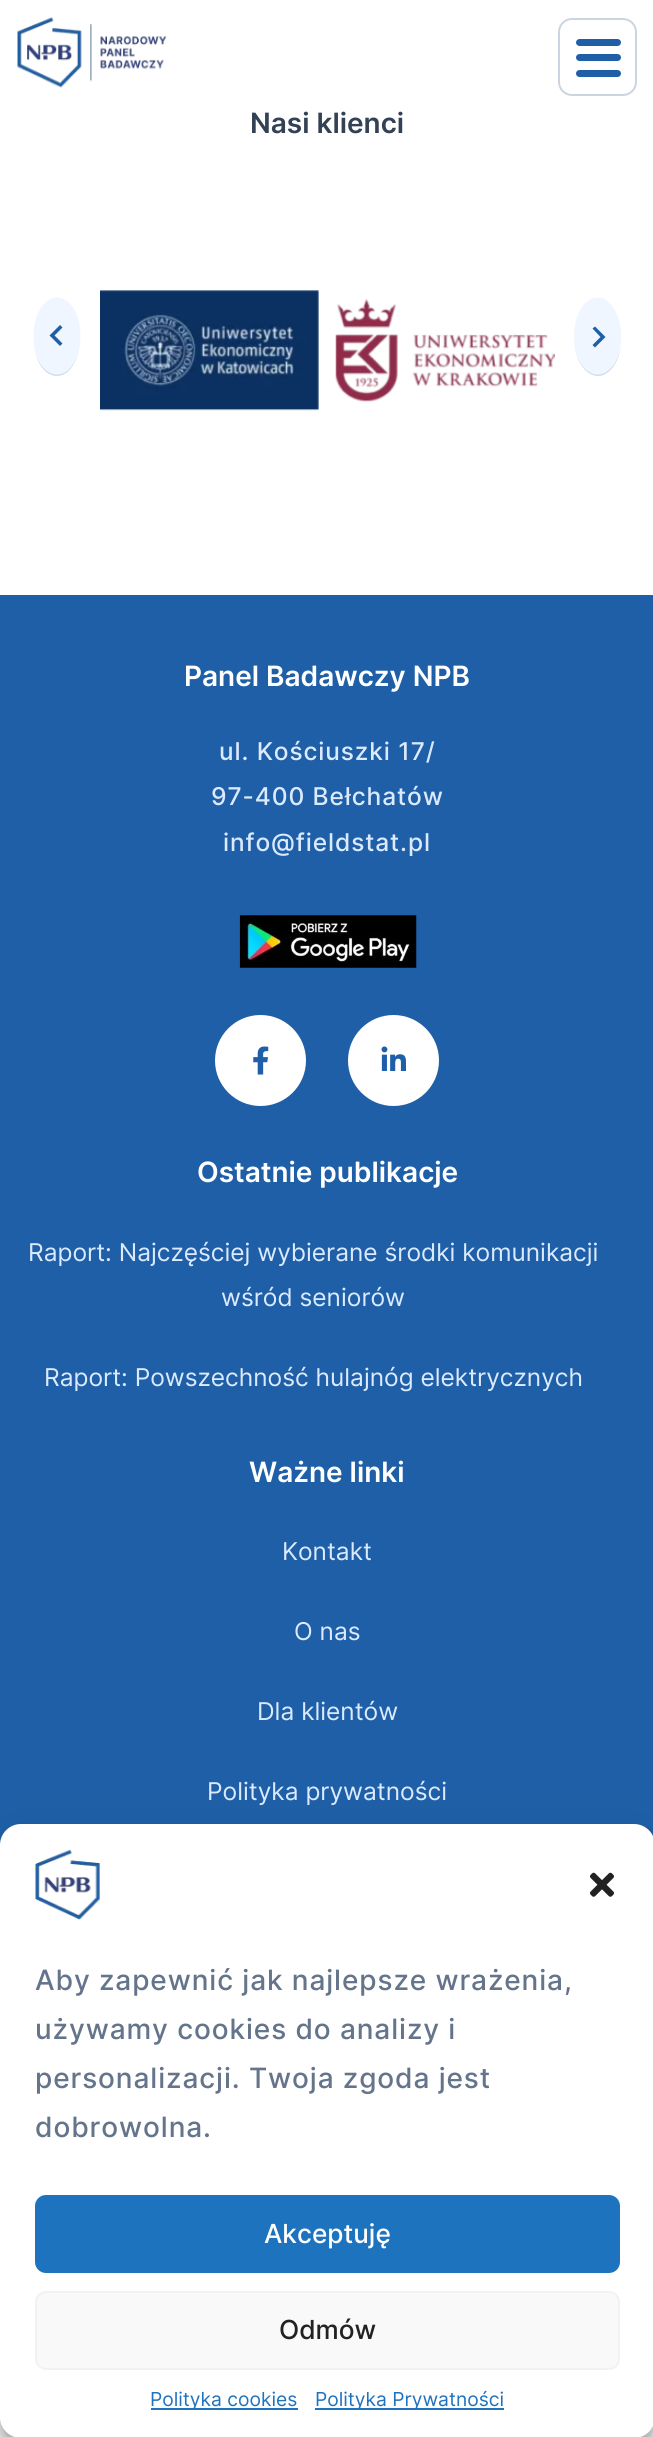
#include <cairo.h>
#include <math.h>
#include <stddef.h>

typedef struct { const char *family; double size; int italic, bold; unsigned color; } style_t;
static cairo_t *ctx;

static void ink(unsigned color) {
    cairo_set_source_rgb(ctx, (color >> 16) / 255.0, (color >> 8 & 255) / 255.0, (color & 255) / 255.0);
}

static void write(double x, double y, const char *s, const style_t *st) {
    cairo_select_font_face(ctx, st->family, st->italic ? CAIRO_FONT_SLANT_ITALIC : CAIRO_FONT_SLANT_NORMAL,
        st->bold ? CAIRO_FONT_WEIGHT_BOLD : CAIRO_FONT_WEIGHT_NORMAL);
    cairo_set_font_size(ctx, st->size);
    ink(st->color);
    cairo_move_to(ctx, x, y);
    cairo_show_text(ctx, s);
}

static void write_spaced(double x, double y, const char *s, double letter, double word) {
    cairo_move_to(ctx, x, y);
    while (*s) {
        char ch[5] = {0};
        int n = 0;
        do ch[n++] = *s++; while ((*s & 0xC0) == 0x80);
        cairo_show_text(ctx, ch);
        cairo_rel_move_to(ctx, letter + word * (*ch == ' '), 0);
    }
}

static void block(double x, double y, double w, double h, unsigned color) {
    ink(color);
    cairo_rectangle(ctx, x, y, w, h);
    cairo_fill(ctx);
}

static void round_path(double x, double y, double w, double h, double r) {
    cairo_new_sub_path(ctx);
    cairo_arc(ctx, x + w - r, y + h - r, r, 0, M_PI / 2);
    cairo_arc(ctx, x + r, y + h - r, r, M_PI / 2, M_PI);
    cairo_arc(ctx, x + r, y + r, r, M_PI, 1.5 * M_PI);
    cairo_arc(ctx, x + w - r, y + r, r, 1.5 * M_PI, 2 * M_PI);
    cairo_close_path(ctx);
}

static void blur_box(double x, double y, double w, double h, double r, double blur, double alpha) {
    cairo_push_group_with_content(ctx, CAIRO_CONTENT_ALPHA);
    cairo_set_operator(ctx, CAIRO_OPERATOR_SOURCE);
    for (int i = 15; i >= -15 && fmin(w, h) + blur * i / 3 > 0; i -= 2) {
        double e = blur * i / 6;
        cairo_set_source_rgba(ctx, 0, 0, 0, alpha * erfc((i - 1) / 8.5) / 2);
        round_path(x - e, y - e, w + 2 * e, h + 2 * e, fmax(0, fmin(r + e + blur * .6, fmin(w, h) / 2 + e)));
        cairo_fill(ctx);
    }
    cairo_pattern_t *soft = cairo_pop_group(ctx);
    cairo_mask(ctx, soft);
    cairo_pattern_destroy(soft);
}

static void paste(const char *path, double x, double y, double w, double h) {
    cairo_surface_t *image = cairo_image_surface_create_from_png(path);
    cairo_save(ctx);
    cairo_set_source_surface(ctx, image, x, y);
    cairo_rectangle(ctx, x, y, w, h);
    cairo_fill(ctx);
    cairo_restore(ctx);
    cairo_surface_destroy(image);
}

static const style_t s1 = {"Inter SemiBold", 28, 0, 0, 0x334155};
static const style_t s2 = {"Inter SemiBold", 28, 0, 0, 0xffffff};
static const style_t s3 = {"Inter", 24.5, 0, 0, 0xdbeafe};
static const style_t s4 = {"Inter Medium", 26.25, 0, 0, 0xffffff};
static const style_t s5 = {"Inter Medium", 26.25, 0, 0, 0x222222};
static const style_t s6 = {"Inter", 19.25, 0, 0, 0x1e73be};

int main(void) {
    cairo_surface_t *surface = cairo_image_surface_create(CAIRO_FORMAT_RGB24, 653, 2437);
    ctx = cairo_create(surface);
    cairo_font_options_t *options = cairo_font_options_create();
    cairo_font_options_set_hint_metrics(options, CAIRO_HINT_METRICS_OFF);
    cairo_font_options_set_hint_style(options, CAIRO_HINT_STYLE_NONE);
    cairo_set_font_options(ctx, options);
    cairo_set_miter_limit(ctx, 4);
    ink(0xffffff);
    cairo_paint(ctx);
    paste("pic1.png", 17, 17, 150, 71);
    round_path(559, 19, 77, 76, 13);
    ink(0xcbd5e1);
    cairo_stroke(ctx);
    ink(0x1e5fa7);
    round_path(576, 39, 45, 7, 3.5);
    cairo_fill(ctx);
    round_path(576, 54, 45, 7, 3.5);
    cairo_fill(ctx);
    round_path(576, 70, 45, 7, 3.5);
    cairo_fill(ctx);
    write(250, 133, "Nasi klienci", &s1);
    ink(0xd0deec);
    cairo_new_path(ctx);
    cairo_move_to(ctx, 80, 337);
    cairo_curve_to(ctx, 80, 358, 70, 374, 57, 374);
    cairo_curve_to(ctx, 46, 374, 36, 362, 34, 345);
    cairo_curve_to(ctx, 36, 363, 45, 376, 57, 376);
    cairo_curve_to(ctx, 70, 376, 80, 359, 80, 338);
    cairo_close_path(ctx);
    cairo_fill(ctx);
    ink(0xeff6ff);
    cairo_new_path(ctx);
    cairo_move_to(ctx, 57, 297.5);
    cairo_curve_to(ctx, 70, 297.5, 80.5, 314.5, 80.5, 336);
    cairo_curve_to(ctx, 80.5, 357.5, 70, 374.5, 57, 374.5);
    cairo_curve_to(ctx, 44, 374.5, 33.5, 357.5, 33.5, 336);
    cairo_curve_to(ctx, 33.5, 314.5, 44, 297.5, 57, 297.5);
    cairo_close_path(ctx);
    cairo_fill(ctx);
    ink(0x1e5fa7);
    cairo_new_path(ctx);
    cairo_move_to(ctx, 60, 346);
    cairo_line_to(ctx, 62.5, 343.5);
    cairo_line_to(ctx, 54.5, 335.5);
    cairo_line_to(ctx, 62.5, 327.5);
    cairo_line_to(ctx, 60, 325);
    cairo_line_to(ctx, 49.5, 335.5);
    cairo_close_path(ctx);
    cairo_fill(ctx);
    paste("pic2.png", 100, 290, 219, 121);
    paste("pic3.png", 335, 299, 220, 103);
    ink(0xd0deec);
    cairo_new_path(ctx);
    cairo_move_to(ctx, 621, 345);
    cairo_curve_to(ctx, 618, 362, 609, 374, 598, 374);
    cairo_curve_to(ctx, 585, 374, 574, 358, 574, 337);
    cairo_line_to(ctx, 574, 338);
    cairo_curve_to(ctx, 574, 359, 585, 376, 598, 376);
    cairo_curve_to(ctx, 609, 376, 619, 363, 621, 345);
    cairo_close_path(ctx);
    cairo_fill(ctx);
    ink(0xeff6ff);
    cairo_new_path(ctx);
    cairo_move_to(ctx, 597.5, 297.5);
    cairo_curve_to(ctx, 610.5, 297.5, 621, 314.5, 621, 336);
    cairo_curve_to(ctx, 621, 357.5, 610.5, 374.5, 597.5, 374.5);
    cairo_curve_to(ctx, 584.5, 374.5, 574, 357.5, 574, 336);
    cairo_curve_to(ctx, 574, 314.5, 584.5, 297.5, 597.5, 297.5);
    cairo_close_path(ctx);
    cairo_fill(ctx);
    ink(0x1e5fa7);
    cairo_new_path(ctx);
    cairo_move_to(ctx, 595, 326.5);
    cairo_line_to(ctx, 592.5, 328.5);
    cairo_line_to(ctx, 600.5, 337);
    cairo_line_to(ctx, 592.5, 345);
    cairo_line_to(ctx, 595, 347.5);
    cairo_line_to(ctx, 605.5, 337);
    cairo_close_path(ctx);
    cairo_fill(ctx);
    block(0, 595, 653, 1250, 0x1e5fa7);
    write(184, 686, "Panel Badawczy NPB", &s2);
    cairo_select_font_face(ctx, "Inter Medium", CAIRO_FONT_SLANT_NORMAL, CAIRO_FONT_WEIGHT_NORMAL);
    cairo_set_font_size(ctx, 24.5);
    ink(0xdbeafe);
    write_spaced(219, 760, "ul. Kościuszki 17/", 0.9, 0);
    write_spaced(211, 805, "97-400 Bełchatów", 0.9, 0);
    write_spaced(223, 851, "info@fieldstat.pl", 0.9, 0);
    paste("pic4.png", 239, 915, 178, 53);
    ink(0xffffff);
    cairo_arc(ctx, 260.5, 1060.5, 45.5, 0, 2 * M_PI);
    cairo_fill(ctx);
    paste("pic5.png", 253, 1046, 16, 29);
    cairo_arc(ctx, 393.5, 1060.5, 45.5, 0, 2 * M_PI);
    cairo_fill(ctx);
    paste("pic6.png", 381, 1046, 25, 25);
    write(197, 1182, "Ostatnie publikacje", &s2);
    write(28, 1261, "Raport: Najczęściej wybierane środki komunikacji", &s3);
    write(221, 1306, "wśród seniorów", &s3);
    write(44, 1386, "Raport: Powszechność hulajnóg elektrycznych", &s3);
    write(249, 1482, "Ważne linki", &s2);
    write(282, 1560, "Kontakt", &s3);
    write(294, 1640, "O nas", &s3);
    write(257, 1720, "Dla klientów", &s3);
    write(207, 1800, "Polityka prywatności", &s3);
    ink(0x000000);
    blur_box(0, 1834, 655, 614, 21, 5, 0.23);
    blur_box(0, 1841, 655, 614, 21, 17.5, 0.19);
    ink(0xffffff);
    round_path(0, 1824, 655, 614, 21);
    cairo_fill(ctx);
    paste("pic7.png", 35, 1849, 65, 71);
    paste("pic8.png", 590, 1872, 24, 25);
    cairo_select_font_face(ctx, "Inter Medium", CAIRO_FONT_SLANT_NORMAL, CAIRO_FONT_WEIGHT_NORMAL);
    cairo_set_font_size(ctx, 28);
    ink(0x64748b);
    write_spaced(35, 1990, "Aby zapewnić jak najlepsze wrażenia,", 0.9, 0);
    write_spaced(35, 2039, "używamy cookies do analizy i", 0.9, 0);
    write_spaced(35, 2088, "personalizacji. Twoja zgoda jest", 0.9, 0);
    write_spaced(35, 2137, "dobrowolna.", 0.9, 0);
    ink(0x1e73be);
    round_path(36, 2196, 583, 76, 10);
    cairo_fill_preserve(ctx);
    cairo_stroke(ctx);
    write(264, 2243, "Akceptuję", &s4);
    ink(0xf9f9f9);
    round_path(36, 2292, 583, 77, 10);
    cairo_fill_preserve(ctx);
    ink(0xf2f2f2);
    cairo_stroke(ctx);
    write(279, 2339, "Odmów", &s5);
    block(151, 2408, 147, 2, 0x1e73be);
    write(150, 2406, "Polityka cookies", &s6);
    block(315, 2408, 189, 2, 0x1e73be);
    write(315, 2406, "Polityka Prywatności", &s6);
    cairo_surface_write_to_png(surface, "screenshot.png");
    cairo_font_options_destroy(options);
    cairo_destroy(ctx);
    cairo_surface_destroy(surface);
    return 0;
}
